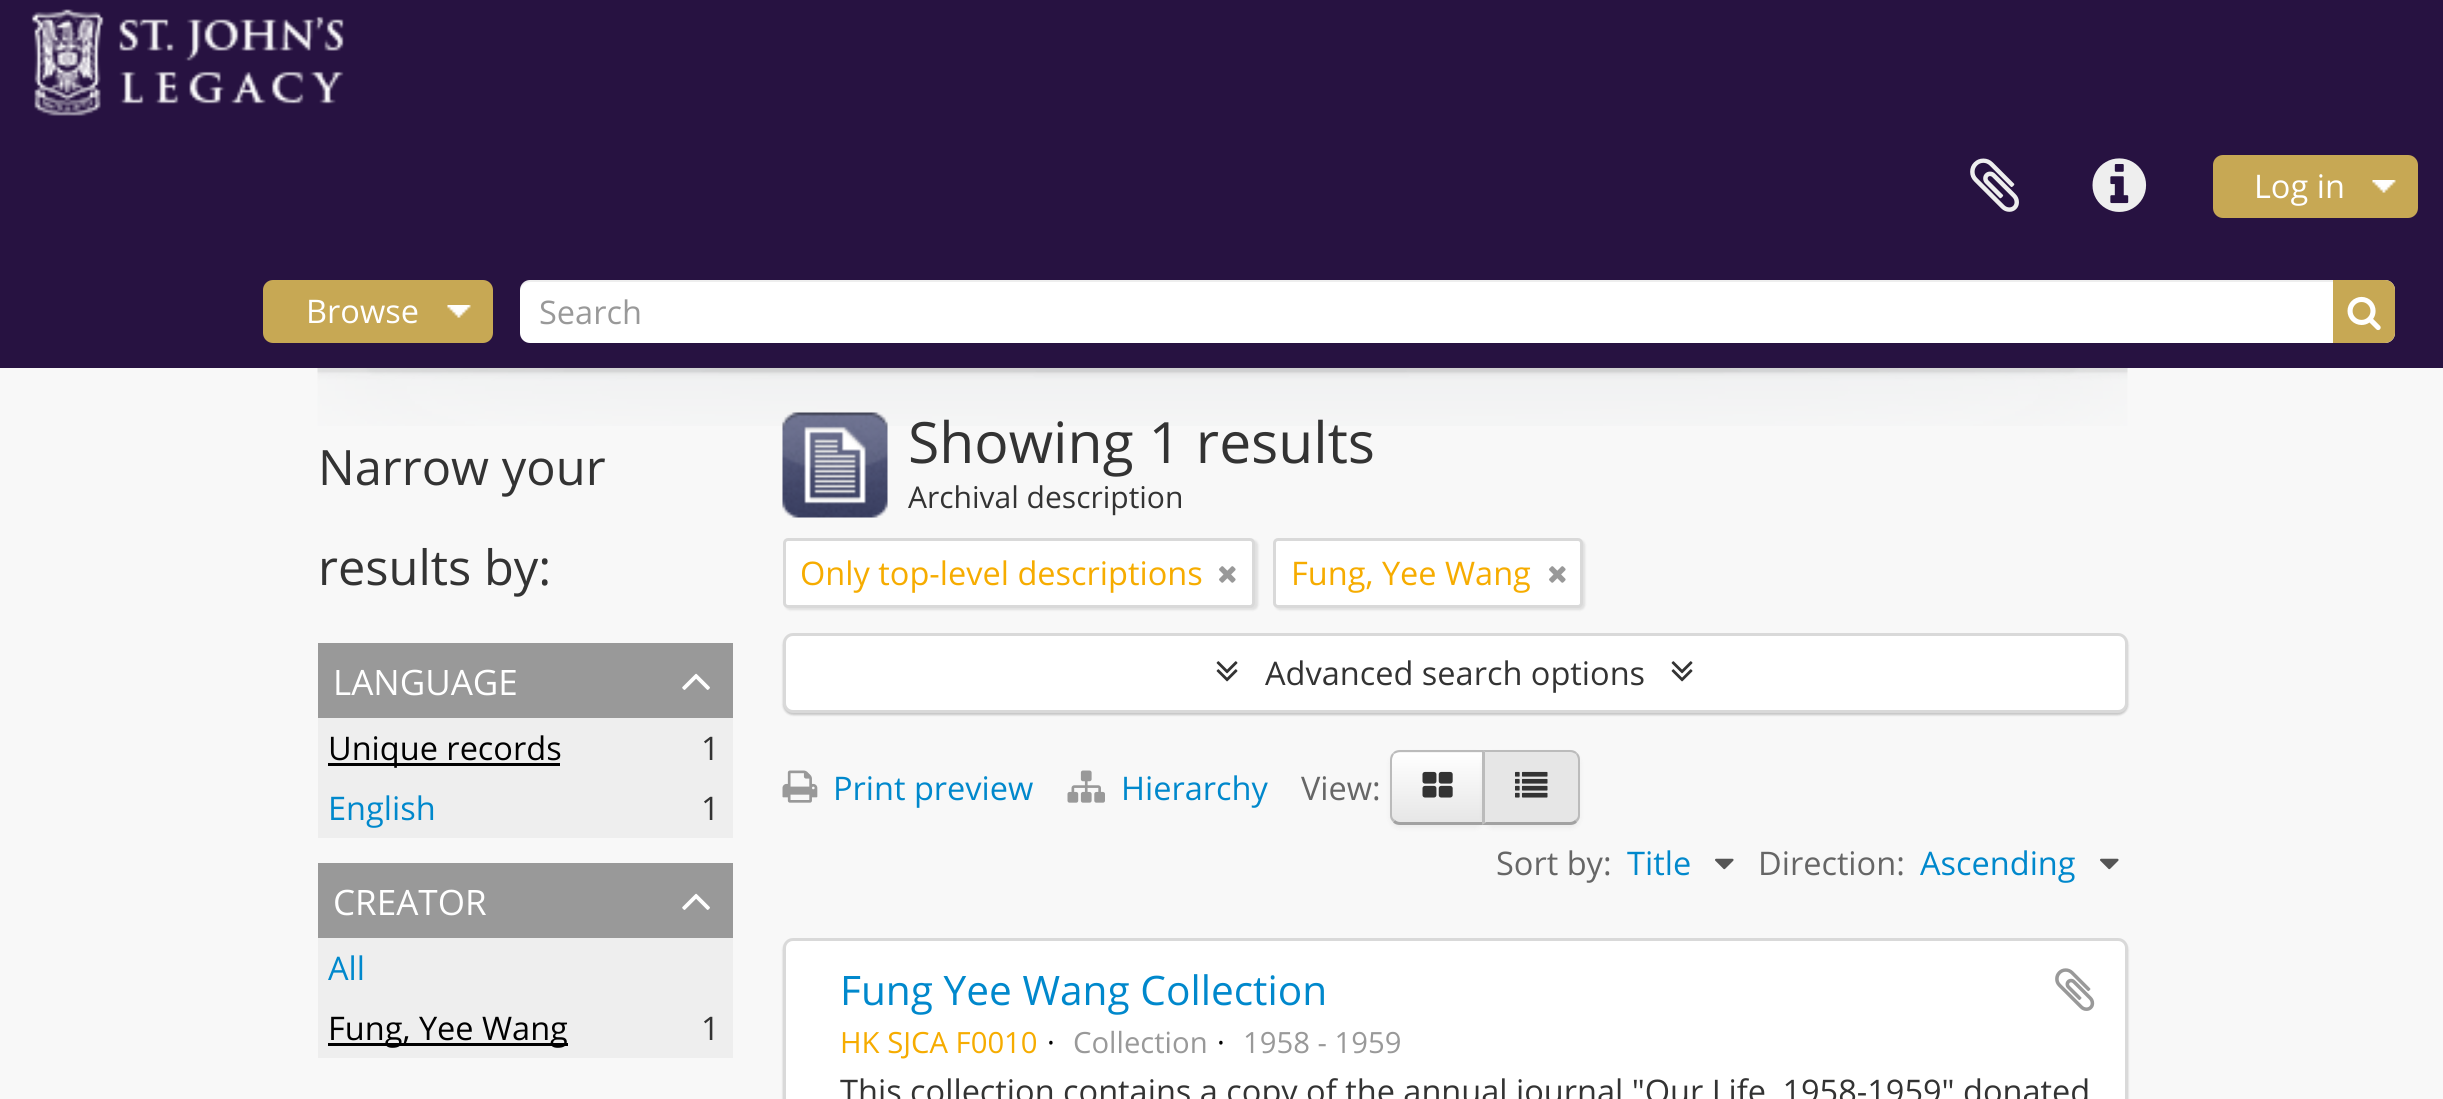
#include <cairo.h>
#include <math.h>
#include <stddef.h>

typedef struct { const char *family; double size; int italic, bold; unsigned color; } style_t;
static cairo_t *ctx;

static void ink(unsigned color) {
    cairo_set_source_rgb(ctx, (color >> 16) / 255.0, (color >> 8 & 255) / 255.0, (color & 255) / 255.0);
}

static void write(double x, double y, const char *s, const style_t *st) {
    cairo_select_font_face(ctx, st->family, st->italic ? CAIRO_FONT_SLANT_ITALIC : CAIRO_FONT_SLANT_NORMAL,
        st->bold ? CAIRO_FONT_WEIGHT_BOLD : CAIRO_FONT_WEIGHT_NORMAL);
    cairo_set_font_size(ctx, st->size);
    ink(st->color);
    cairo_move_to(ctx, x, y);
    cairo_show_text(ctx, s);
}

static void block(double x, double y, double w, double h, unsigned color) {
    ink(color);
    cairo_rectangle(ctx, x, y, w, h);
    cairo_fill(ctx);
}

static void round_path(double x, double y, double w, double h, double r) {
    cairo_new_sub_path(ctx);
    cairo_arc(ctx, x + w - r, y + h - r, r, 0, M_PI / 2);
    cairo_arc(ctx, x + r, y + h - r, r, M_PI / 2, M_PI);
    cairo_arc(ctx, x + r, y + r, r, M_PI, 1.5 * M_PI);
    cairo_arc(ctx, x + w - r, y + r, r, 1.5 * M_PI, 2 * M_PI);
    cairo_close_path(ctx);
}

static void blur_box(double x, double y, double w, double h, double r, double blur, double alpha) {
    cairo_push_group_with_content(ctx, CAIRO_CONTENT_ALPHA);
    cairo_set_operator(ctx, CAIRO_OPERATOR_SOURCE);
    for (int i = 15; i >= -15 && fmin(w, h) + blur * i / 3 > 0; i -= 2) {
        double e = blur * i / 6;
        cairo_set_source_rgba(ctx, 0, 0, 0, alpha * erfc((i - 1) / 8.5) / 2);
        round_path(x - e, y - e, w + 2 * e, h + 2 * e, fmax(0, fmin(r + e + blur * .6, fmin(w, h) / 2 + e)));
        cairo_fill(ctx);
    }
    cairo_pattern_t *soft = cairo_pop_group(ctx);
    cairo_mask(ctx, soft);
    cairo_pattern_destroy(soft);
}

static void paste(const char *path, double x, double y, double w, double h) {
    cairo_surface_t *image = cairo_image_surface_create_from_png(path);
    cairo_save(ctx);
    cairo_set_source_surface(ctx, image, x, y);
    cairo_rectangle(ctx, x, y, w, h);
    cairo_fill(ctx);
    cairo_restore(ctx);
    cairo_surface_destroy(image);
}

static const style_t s1 = {"Open Sans", 32.5, 0, 0, 0xffffff};
static const style_t s2 = {"Open Sans", 32.5, 0, 0, 0x999999};
static const style_t s3 = {"Open Sans", 48.75, 0, 0, 0x333333};
static const style_t s4 = {"Open Sans", 35, 0, 0, 0xffffff};
static const style_t s5 = {"Open Sans", 32.5, 0, 0, 0x000000};
static const style_t s6 = {"Open Sans", 32.5, 0, 0, 0x333333};
static const style_t s7 = {"Open Sans", 32.5, 0, 0, 0x0088cc};
static const style_t s8 = {"Open Sans", 57, 0, 0, 0x333333};
static const style_t s9 = {"Open Sans", 30, 0, 0, 0x333333};
static const style_t s10 = {"Open Sans", 32.5, 0, 0, 0xf6ac00};
static const style_t s11 = {"Open Sans", 32.5, 0, 0, 0x666666};
static const style_t s12 = {"Open Sans", 40.6, 0, 0, 0x0088cc};
static const style_t s13 = {"Open Sans", 29.25, 0, 0, 0xf6ac00};
static const style_t s14 = {"Open Sans", 29.25, 0, 0, 0x000000};
static const style_t s15 = {"Open Sans", 29.25, 0, 0, 0x999999};

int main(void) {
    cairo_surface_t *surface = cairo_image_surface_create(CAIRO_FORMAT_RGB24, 2443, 1099);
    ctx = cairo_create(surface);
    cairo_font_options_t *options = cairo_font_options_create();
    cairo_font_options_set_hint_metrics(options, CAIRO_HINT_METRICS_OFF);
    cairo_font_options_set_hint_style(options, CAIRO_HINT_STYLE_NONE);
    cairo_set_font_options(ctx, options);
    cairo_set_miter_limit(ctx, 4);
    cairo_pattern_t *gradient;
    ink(0xf8f8f8);
    cairo_paint(ctx);
    block(0, 0, 2443, 368, 0x271241);
    paste("pic1.png", 31, 9, 313, 107);
    paste("pic2.png", 1970, 158, 49, 54);
    paste("pic3.png", 2092, 158, 55, 54);
    ink(0xc7a854);
    round_path(2213, 155, 205, 63, 10);
    cairo_fill(ctx);
    paste("pic4.png", 2372, 180, 24, 13);
    write(2254, 198, "Log in", &s1);
    ink(0xc7a854);
    round_path(263, 280, 230, 63, 10);
    cairo_fill(ctx);
    paste("pic5.png", 447, 305, 24, 13);
    write(306, 323, "Browse", &s1);
    round_path(520, 280, 1875, 63, 10);
    cairo_fill(ctx);
    cairo_set_source_rgba(ctx, 0, 0, 0, 0.07);
    cairo_new_path(ctx);
    cairo_move_to(ctx, 530, 282);
    cairo_line_to(ctx, 2385, 282);
    cairo_curve_to(ctx, 2391, 282, 2395, 287, 2395, 292);
    cairo_curve_to(ctx, 2395, 286, 2392, 280, 2385, 280);
    cairo_line_to(ctx, 530, 280);
    cairo_curve_to(ctx, 523, 280, 520, 286, 520, 292);
    cairo_curve_to(ctx, 520, 287, 524, 282, 530, 282);
    cairo_close_path(ctx);
    cairo_fill(ctx);
    write(539, 324, "Search", &s2);
    ink(0xc7a854);
    cairo_new_path(ctx);
    cairo_move_to(ctx, 2333, 280);
    cairo_line_to(ctx, 2385, 280);
    cairo_curve_to(ctx, 2390.5, 280, 2395, 284.5, 2395, 290);
    cairo_line_to(ctx, 2395, 333);
    cairo_curve_to(ctx, 2395, 338.5, 2390.5, 343, 2385, 343);
    cairo_line_to(ctx, 2333, 343);
    cairo_close_path(ctx);
    cairo_fill(ctx);
    paste("pic6.png", 2347, 296, 34, 35);
    paste("pic7.png", 317, 367, 1811, 59);
    write(318, 485, "Narrow your", &s3);
    write(318, 585, "results by:", &s3);
    block(318, 643, 415, 75, 0x999999);
    write(333, 695, "LANGUAGE", &s4);
    paste("pic8.png", 682, 673, 28, 17);
    block(318, 718, 415, 120, 0xeeeeee);
    block(328, 763, 232, 3, 0x000000);
    write(328, 760, "Unique records", &s5);
    write(701, 760, "1", &s6);
    write(328, 820, "English", &s7);
    write(701, 820, "1", &s6);
    block(318, 863, 415, 75, 0x999999);
    write(333, 915, "CREATOR", &s4);
    paste("pic8.png", 682, 893, 28, 17);
    block(318, 938, 415, 120, 0xeeeeee);
    write(328, 980, "All", &s7);
    block(328, 1043, 240, 3, 0x000000);
    write(328, 1040, "Fung, Yee Wang", &s5);
    write(701, 1040, "1", &s6);
    paste("pic9.png", 782, 412, 106, 106);
    write(908, 463, "Showing 1 results", &s8);
    write(908, 508, "Archival description", &s9);
    ink(0x000000);
    blur_box(785, 540, 473, 70, 5, 1, 0.1);
    ink(0xffffff);
    round_path(784.5, 539.5, 469, 67, 3.5);
    cairo_fill_preserve(ctx);
    ink(0xd9d9d9);
    cairo_set_line_width(ctx, 3);
    cairo_stroke(ctx);
    write(800, 585, "Only top-level descriptions", &s10);
    paste("pic10.png", 1219, 566, 17, 17);
    ink(0x000000);
    blur_box(1275, 540, 310, 70, 5, 1, 0.1);
    ink(0xffffff);
    round_path(1274.5, 539.5, 307, 67, 3.5);
    cairo_fill_preserve(ctx);
    ink(0xd9d9d9);
    cairo_stroke(ctx);
    write(1291, 585, "Fung, Yee Wang", &s10);
    paste("pic10.png", 1549, 566, 17, 17);
    ink(0x000000);
    blur_box(783, 635, 1345, 80, 10, 1, 0.2);
    ink(0xffffff);
    round_path(784.5, 634.5, 1342, 77, 8.5);
    cairo_fill_preserve(ctx);
    ink(0xd9d9d9);
    cairo_stroke(ctx);
    paste("pic11.png", 1216, 661, 22, 21);
    write(1265, 685, "Advanced search options", &s6);
    paste("pic11.png", 1671, 661, 22, 21);
    paste("pic12.png", 782, 770, 36, 33);
    write(833, 800, "Print preview", &s7);
    paste("pic13.png", 1067, 770, 38, 33);
    write(1121, 800, "Hierarchy", &s7);
    write(1301, 800, "View:", &s11);
    ink(0x000000);
    blur_box(1390, 753, 95, 75, 10, 2.5, 0.05);
    ink(0xf5f5f5);
    cairo_new_path(ctx);
    cairo_move_to(ctx, 1400, 750);
    cairo_line_to(ctx, 1485, 750);
    cairo_line_to(ctx, 1485, 825);
    cairo_line_to(ctx, 1400, 825);
    cairo_curve_to(ctx, 1394.5, 825, 1390, 820.5, 1390, 815);
    cairo_line_to(ctx, 1390, 760);
    cairo_curve_to(ctx, 1390, 754.5, 1394.5, 750, 1400, 750);
    cairo_close_path(ctx);
    cairo_fill(ctx);
    cairo_save(ctx);
    cairo_new_path(ctx);
    cairo_move_to(ctx, 1400, 750);
    cairo_line_to(ctx, 1485, 750);
    cairo_line_to(ctx, 1485, 825);
    cairo_line_to(ctx, 1400, 825);
    cairo_curve_to(ctx, 1394.5, 825, 1390, 820.5, 1390, 815);
    cairo_line_to(ctx, 1390, 760);
    cairo_curve_to(ctx, 1390, 754.5, 1394.5, 750, 1400, 750);
    cairo_close_path(ctx);
    cairo_clip(ctx);
    gradient = cairo_pattern_create_linear(1438, 753, 1438, 823);
    cairo_pattern_add_color_stop_rgba(gradient, 0, 1, 1, 1, 1);
    cairo_pattern_add_color_stop_rgba(gradient, 1, 0.902, 0.902, 0.902, 1);
    cairo_set_source(ctx, gradient);
    cairo_pattern_destroy(gradient);
    cairo_rectangle(ctx, 1390, 753, 92, 70);
    cairo_fill(ctx);
    cairo_restore(ctx);
    cairo_set_source_rgba(ctx, 1, 1, 1, 0.2);
    cairo_new_path(ctx);
    cairo_move_to(ctx, 1400, 755);
    cairo_line_to(ctx, 1482, 755);
    cairo_line_to(ctx, 1482, 823);
    cairo_line_to(ctx, 1483, 823);
    cairo_line_to(ctx, 1483, 753);
    cairo_line_to(ctx, 1401, 753);
    cairo_curve_to(ctx, 1398, 753, 1395, 755, 1394, 758);
    cairo_curve_to(ctx, 1395, 756, 1398, 755, 1400, 755);
    cairo_close_path(ctx);
    cairo_fill(ctx);
    ink(0xbbbbbb);
    cairo_new_path(ctx);
    cairo_move_to(ctx, 1400, 750);
    cairo_curve_to(ctx, 1397, 750, 1394, 751, 1393, 753);
    cairo_line_to(ctx, 1394, 754);
    cairo_curve_to(ctx, 1396, 753, 1398, 752, 1400, 752);
    cairo_line_to(ctx, 1482, 752);
    cairo_line_to(ctx, 1482, 753);
    cairo_line_to(ctx, 1485, 750);
    cairo_close_path(ctx);
    cairo_fill(ctx);
    ink(0xa2a2a2);
    cairo_new_path(ctx);
    cairo_move_to(ctx, 1485, 825);
    cairo_line_to(ctx, 1482, 822);
    cairo_line_to(ctx, 1400, 822);
    cairo_curve_to(ctx, 1398, 822, 1396, 821, 1395, 820);
    cairo_line_to(ctx, 1393, 822);
    cairo_curve_to(ctx, 1394, 824, 1397, 825, 1400, 825);
    cairo_close_path(ctx);
    cairo_fill(ctx);
    ink(0xbbbbbb);
    cairo_new_path(ctx);
    cairo_move_to(ctx, 1390, 760);
    cairo_line_to(ctx, 1390, 815);
    cairo_curve_to(ctx, 1390, 818, 1391, 820, 1393, 822);
    cairo_line_to(ctx, 1395, 820);
    cairo_curve_to(ctx, 1393, 819, 1392, 817, 1392, 815);
    cairo_line_to(ctx, 1392, 760);
    cairo_curve_to(ctx, 1392, 758, 1393, 756, 1394, 754);
    cairo_line_to(ctx, 1393, 753);
    cairo_curve_to(ctx, 1391, 754, 1390, 757, 1390, 760);
    cairo_close_path(ctx);
    cairo_fill(ctx);
    paste("pic14.png", 1422, 771, 31, 27);
    ink(0x000000);
    blur_box(1483, 753, 97, 75, 10, 2.5, 0.05);
    ink(0xe6e6e6);
    cairo_new_path(ctx);
    cairo_move_to(ctx, 1483, 750);
    cairo_line_to(ctx, 1570, 750);
    cairo_curve_to(ctx, 1575.5, 750, 1580, 754.5, 1580, 760);
    cairo_line_to(ctx, 1580, 815);
    cairo_curve_to(ctx, 1580, 820.5, 1575.5, 825, 1570, 825);
    cairo_line_to(ctx, 1483, 825);
    cairo_close_path(ctx);
    cairo_fill(ctx);
    ink(0xbbbbbb);
    cairo_new_path(ctx);
    cairo_move_to(ctx, 1485, 752);
    cairo_line_to(ctx, 1570, 752);
    cairo_curve_to(ctx, 1572, 752, 1574, 753, 1576, 754);
    cairo_line_to(ctx, 1577, 753);
    cairo_curve_to(ctx, 1576, 751, 1573, 750, 1570, 750);
    cairo_line_to(ctx, 1482, 750);
    cairo_close_path(ctx);
    cairo_fill(ctx);
    cairo_new_path(ctx);
    cairo_move_to(ctx, 1580, 815);
    cairo_line_to(ctx, 1580, 760);
    cairo_curve_to(ctx, 1580, 757, 1579, 754, 1577, 753);
    cairo_line_to(ctx, 1576, 754);
    cairo_curve_to(ctx, 1577, 756, 1578, 758, 1578, 760);
    cairo_line_to(ctx, 1578, 815);
    cairo_curve_to(ctx, 1578, 817, 1577, 819, 1575, 820);
    cairo_line_to(ctx, 1577, 822);
    cairo_curve_to(ctx, 1579, 820, 1580, 818, 1580, 815);
    cairo_close_path(ctx);
    cairo_fill(ctx);
    ink(0xa2a2a2);
    cairo_new_path(ctx);
    cairo_move_to(ctx, 1482, 825);
    cairo_line_to(ctx, 1570, 825);
    cairo_curve_to(ctx, 1573, 825, 1576, 824, 1577, 822);
    cairo_line_to(ctx, 1575, 820);
    cairo_curve_to(ctx, 1574, 821, 1572, 822, 1570, 822);
    cairo_line_to(ctx, 1486, 822);
    cairo_close_path(ctx);
    cairo_fill(ctx);
    ink(0xbbbbbb);
    cairo_new_path(ctx);
    cairo_move_to(ctx, 1482, 825);
    cairo_line_to(ctx, 1486, 822);
    cairo_line_to(ctx, 1485, 822);
    cairo_line_to(ctx, 1485, 752);
    cairo_line_to(ctx, 1482, 750);
    cairo_close_path(ctx);
    cairo_fill(ctx);
    paste("pic15.png", 1515, 771, 33, 27);
    write(1496, 875, "Sort by:", &s11);
    write(1627, 875, "Title", &s7);
    paste("pic16.png", 1715, 858, 19, 12);
    write(1758, 875, "Direction:", &s11);
    write(1920, 875, "Ascending", &s7);
    paste("pic16.png", 2100, 858, 19, 12);
    ink(0x000000);
    blur_box(783, 940, 1345, 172, 10, 1, 0.2);
    ink(0xffffff);
    round_path(784.5, 939.5, 1342, 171, 8.5);
    cairo_fill_preserve(ctx);
    ink(0xd9d9d9);
    cairo_stroke(ctx);
    write(840, 1005, "Fung Yee Wang Collection", &s12);
    paste("pic17.png", 2055, 968, 40, 43);
    write(840, 1053, "HK SJCA F0010", &s13);
    write(1047, 1053, "·", &s14);
    write(1073, 1053, "Collection", &s15);
    write(1217, 1053, "·", &s14);
    write(1243, 1053, "1958 - 1959", &s15);
    write(840, 1103, "This collection contains a copy of the annual journal \"Our Life, 1958-1959\" donated", &s6);
    cairo_surface_write_to_png(surface, "screenshot.png");
    cairo_font_options_destroy(options);
    cairo_destroy(ctx);
    cairo_surface_destroy(surface);
    return 0;
}
